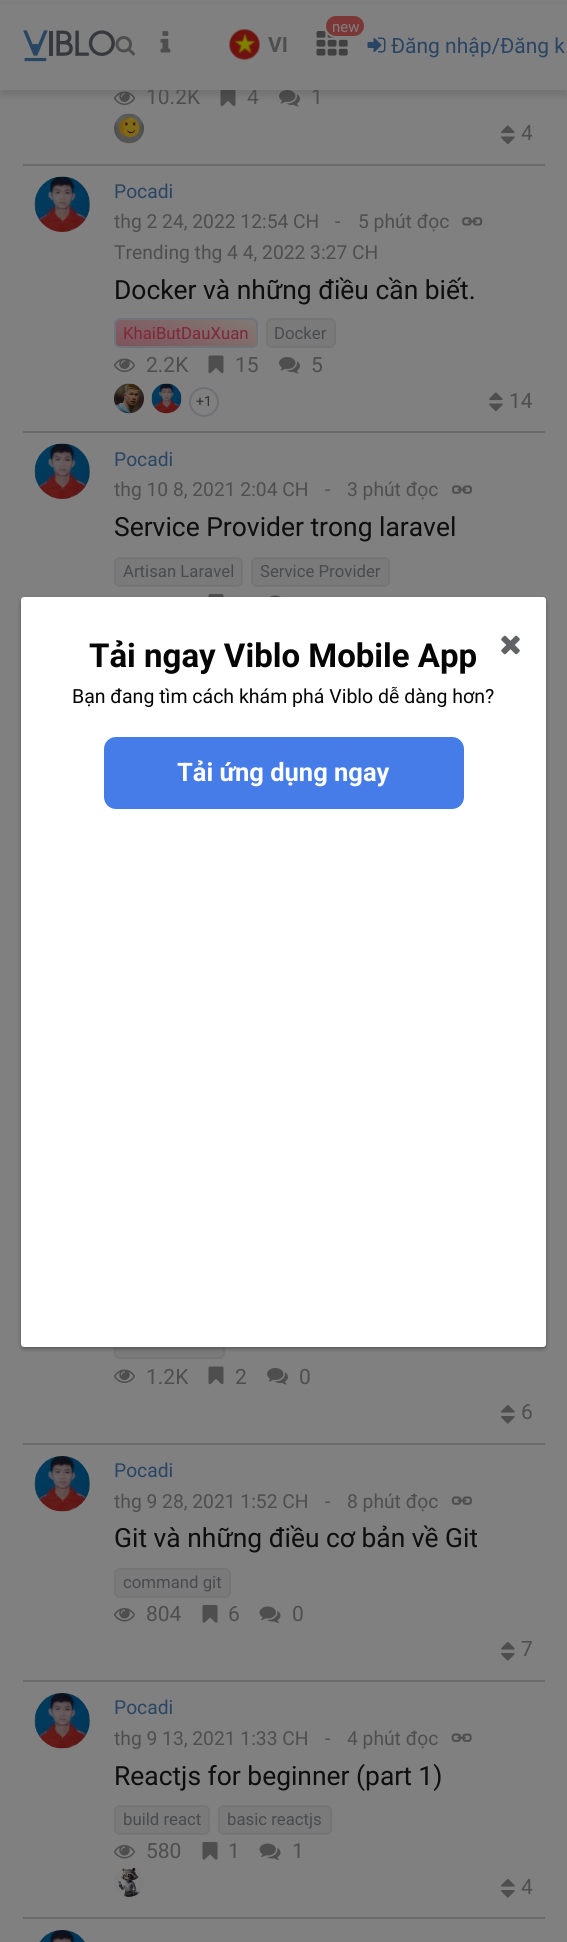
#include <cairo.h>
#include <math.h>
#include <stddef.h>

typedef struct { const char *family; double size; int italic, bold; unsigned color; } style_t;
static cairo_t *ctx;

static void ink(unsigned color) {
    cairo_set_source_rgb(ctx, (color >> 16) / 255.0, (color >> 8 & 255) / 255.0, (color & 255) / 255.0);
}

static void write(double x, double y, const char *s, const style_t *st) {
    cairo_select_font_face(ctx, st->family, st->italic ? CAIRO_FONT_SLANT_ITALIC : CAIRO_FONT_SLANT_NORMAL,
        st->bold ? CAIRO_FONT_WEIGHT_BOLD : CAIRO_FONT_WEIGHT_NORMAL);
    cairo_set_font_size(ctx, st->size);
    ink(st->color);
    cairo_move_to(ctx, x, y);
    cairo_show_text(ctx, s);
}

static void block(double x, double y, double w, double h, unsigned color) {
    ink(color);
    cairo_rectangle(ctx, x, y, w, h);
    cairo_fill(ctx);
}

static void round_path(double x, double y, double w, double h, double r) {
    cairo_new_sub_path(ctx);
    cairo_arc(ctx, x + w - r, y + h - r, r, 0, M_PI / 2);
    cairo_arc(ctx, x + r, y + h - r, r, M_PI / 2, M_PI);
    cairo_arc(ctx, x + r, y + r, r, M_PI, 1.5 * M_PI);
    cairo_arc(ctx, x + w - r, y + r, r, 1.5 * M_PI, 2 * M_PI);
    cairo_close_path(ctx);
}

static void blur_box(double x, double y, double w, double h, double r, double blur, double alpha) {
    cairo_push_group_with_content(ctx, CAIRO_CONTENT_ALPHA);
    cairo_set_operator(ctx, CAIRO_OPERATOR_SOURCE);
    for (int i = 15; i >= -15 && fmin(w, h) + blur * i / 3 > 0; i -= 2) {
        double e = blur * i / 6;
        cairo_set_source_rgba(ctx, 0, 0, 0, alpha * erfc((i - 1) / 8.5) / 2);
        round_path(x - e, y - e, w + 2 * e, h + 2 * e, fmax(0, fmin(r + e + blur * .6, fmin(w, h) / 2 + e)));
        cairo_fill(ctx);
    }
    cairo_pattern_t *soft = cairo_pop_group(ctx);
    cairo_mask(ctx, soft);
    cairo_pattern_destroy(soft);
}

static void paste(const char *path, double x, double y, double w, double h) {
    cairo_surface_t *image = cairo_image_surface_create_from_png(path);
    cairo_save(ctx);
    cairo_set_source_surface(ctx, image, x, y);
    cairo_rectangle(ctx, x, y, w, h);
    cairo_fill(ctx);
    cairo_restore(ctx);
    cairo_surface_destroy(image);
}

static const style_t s1 = {"Roboto", 21, 0, 0, 0x4e4e4e};
static const style_t s2 = {"Roboto", 15, 0, 0, 0x808080};
static const style_t s3 = {"Roboto", 21, 0, 1, 0x4e4e4e};
static const style_t s4 = {"Roboto", 21, 0, 0, 0x2a4464};
static const style_t s5 = {"Roboto", 19.25, 0, 0, 0x2a4464};
static const style_t s6 = {"Roboto", 19.25, 0, 0, 0x4e4e4e};
static const style_t s7 = {"Roboto", 26.4, 0, 0, 0x0e0e0e};
static const style_t s8 = {"Roboto", 16.75, 0, 0, 0x7f273a};
static const style_t s9 = {"Roboto", 16.75, 0, 0, 0x484a4d};
static const style_t s10 = {"Roboto", 14, 0, 0, 0x303133};
static const style_t s11 = {"Roboto", 33, 0, 1, 0x050505};
static const style_t s12 = {"Roboto", 19.5, 0, 0, 0x050505};
static const style_t s13 = {"Roboto", 25.5, 0, 1, 0xffffff};

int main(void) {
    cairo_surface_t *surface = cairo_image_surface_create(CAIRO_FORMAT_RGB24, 567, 1942);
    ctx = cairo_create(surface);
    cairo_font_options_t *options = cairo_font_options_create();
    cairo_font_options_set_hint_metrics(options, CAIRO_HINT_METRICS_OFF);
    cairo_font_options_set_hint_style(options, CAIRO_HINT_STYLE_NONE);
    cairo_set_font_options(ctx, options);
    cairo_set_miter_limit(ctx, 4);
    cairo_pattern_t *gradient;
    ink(0x808080);
    cairo_paint(ctx);
    paste("pic7.png", 114, 91, 21, 14);
    paste("pic8.png", 220, 90, 16, 17);
    paste("pic9.png", 279, 90, 21, 17);
    ink(0x000000);
    blur_box(0, 6, 567, 90, 0, 3, 0.1);
    write(146, 104, "10.2K", &s1);
    write(247, 104, "4", &s1);
    write(311, 104, "1", &s1);
    block(0, 4, 567, 86, 0x808080);
    paste("pic1.png", 23, 30, 92, 32);
    paste("pic2.png", 115, 36, 20, 20);
    paste("pic3.png", 160, 31, 11, 22);
    paste("pic4.png", 316, 31, 32, 25);
    ink(0x7b3636);
    round_path(325, 15, 40, 22, 11);
    cairo_fill_preserve(ctx);
    ink(0x808080);
    cairo_stroke(ctx);
    write(332, 32, "new", &s2);
    paste("pic5.png", 229, 29, 31, 31);
    write(268, 52, "VI", &s3);
    paste("pic6.png", 367, 37, 19, 16);
    write(391, 53, "Đăng nhập/Đăng k", &s4);
    block(23, 164, 522, 2, 0x6b6b6c);
    paste("pic10.png", 114, 113, 30, 31);
    paste("pic11.png", 501, 125, 14, 9);
    paste("pic12.png", 501, 136, 14, 9);
    write(521, 140, "4", &s1);
    block(23, 431, 522, 2, 0x6b6b6c);
    paste("pic13.png", 34, 176, 56, 56);
    write(114, 198, "Pocadi", &s5);
    write(114, 228, "thg 2 24, 2022 12:54 CH", &s6);
    write(335, 228, "-", &s6);
    write(358, 228, "5 phút đọc", &s6);
    paste("pic14.png", 462, 217, 21, 9);
    write(114, 259, "Trending thg 4 4, 2022 3:27 CH", &s6);
    write(114, 299, "Docker và những điều cần biết.", &s7);
    cairo_save(ctx);
    round_path(114, 318, 144, 30, 6);
    cairo_clip(ctx);
    gradient = cairo_pattern_create_linear(173, 368, 199, 298);
    cairo_pattern_add_color_stop_rgba(gradient, 0, 0.498, 0.322, 0.361, 1);
    cairo_pattern_add_color_stop_rgba(gradient, 1, 0.502, 0.478, 0.455, 1);
    cairo_set_source(ctx, gradient);
    cairo_pattern_destroy(gradient);
    cairo_rectangle(ctx, 116, 320, 141, 27);
    cairo_fill(ctx);
    cairo_restore(ctx);
    round_path(115, 319, 142, 28, 5);
    ink(0x6f747a);
    cairo_stroke(ctx);
    write(123, 339, "KhaiButDauXuan", &s8);
    ink(0x7a7a7b);
    round_path(267, 319, 68, 28, 5);
    cairo_fill_preserve(ctx);
    ink(0x757576);
    cairo_stroke(ctx);
    write(274, 339, "Docker", &s9);
    paste("pic7.png", 114, 358, 21, 14);
    write(146, 372, "2.2K", &s1);
    paste("pic15.png", 208, 355, 16, 19);
    write(235, 372, "15", &s1);
    paste("pic9.png", 279, 357, 21, 17);
    write(311, 372, "5", &s1);
    paste("pic16.png", 114, 383, 30, 31);
    paste("pic17.png", 151, 383, 31, 31);
    cairo_arc(ctx, 204, 402, 14, 0, 2 * M_PI);
    ink(0x6e7073);
    cairo_stroke(ctx);
    write(196, 406, "+1", &s10);
    paste("pic11.png", 489, 392, 14, 9);
    paste("pic12.png", 489, 403, 14, 9);
    write(509, 408, "14", &s1);
    paste("pic13.png", 34, 443, 56, 56);
    write(114, 466, "Pocadi", &s5);
    write(114, 496, "thg 10 8, 2021 2:04 CH", &s6);
    write(325, 496, "-", &s6);
    write(347, 496, "3 phút đọc", &s6);
    paste("pic18.png", 452, 485, 20, 9);
    write(114, 536, "Service Provider trong laravel", &s7);
    ink(0x7a7a7b);
    round_path(115, 558, 127, 28, 5);
    cairo_fill_preserve(ctx);
    ink(0x757576);
    cairo_stroke(ctx);
    write(123, 577, "Artisan Laravel", &s9);
    ink(0x7a7a7b);
    round_path(252, 558, 137, 28, 5);
    cairo_fill_preserve(ctx);
    ink(0x757576);
    cairo_stroke(ctx);
    write(260, 577, "Service Provider", &s9);
    paste("pic19.png", 208, 594, 16, 3);
    paste("pic20.png", 270, 595, 11, 2);
    block(23, 1443, 522, 2, 0x6b6b6c);
    ink(0x7a7a7b);
    round_path(115, 1330, 109, 28, 5);
    cairo_fill_preserve(ctx);
    ink(0x757576);
    cairo_stroke(ctx);
    paste("pic7.png", 114, 1369, 21, 14);
    write(146, 1384, "1.2K", &s1);
    paste("pic15.png", 208, 1366, 16, 19);
    write(235, 1384, "2", &s1);
    paste("pic9.png", 267, 1368, 21, 17);
    write(299, 1384, "0", &s1);
    paste("pic21.png", 501, 1405, 14, 8);
    paste("pic22.png", 501, 1416, 14, 8);
    write(521, 1419, "6", &s1);
    block(23, 1680, 522, 2, 0x6b6b6c);
    paste("pic23.png", 34, 1456, 56, 56);
    write(114, 1477, "Pocadi", &s5);
    write(114, 1508, "thg 9 28, 2021 1:52 CH", &s6);
    write(325, 1508, "-", &s6);
    write(347, 1508, "8 phút đọc", &s6);
    paste("pic24.png", 451, 1496, 21, 9);
    write(114, 1547, "Git và những điều cơ bản về Git", &s7);
    ink(0x7a7a7b);
    round_path(115, 1569, 115, 28, 5);
    cairo_fill_preserve(ctx);
    ink(0x757576);
    cairo_stroke(ctx);
    write(123, 1588, "command git", &s9);
    paste("pic25.png", 114, 1608, 21, 14);
    write(146, 1621, "804", &s1);
    paste("pic26.png", 202, 1605, 16, 18);
    write(228, 1621, "6", &s1);
    paste("pic27.png", 259, 1606, 22, 17);
    write(292, 1621, "0", &s1);
    paste("pic21.png", 501, 1642, 14, 8);
    paste("pic22.png", 501, 1653, 14, 8);
    write(521, 1656, "7", &s1);
    block(23, 1917, 522, 2, 0x6b6b6c);
    paste("pic23.png", 34, 1693, 56, 56);
    write(114, 1714, "Pocadi", &s5);
    write(114, 1745, "thg 9 13, 2021 1:33 CH", &s6);
    write(325, 1745, "-", &s6);
    write(347, 1745, "4 phút đọc", &s6);
    paste("pic28.png", 451, 1733, 21, 9);
    write(114, 1785, "Reactjs for beginner (part 1)", &s7);
    ink(0x7a7a7b);
    round_path(115, 1806, 94, 28, 5);
    cairo_fill_preserve(ctx);
    ink(0x757576);
    cairo_stroke(ctx);
    write(123, 1825, "build react", &s9);
    ink(0x7a7a7b);
    round_path(219, 1806, 112, 28, 5);
    cairo_fill_preserve(ctx);
    ink(0x757576);
    cairo_stroke(ctx);
    write(227, 1825, "basic reactjs", &s9);
    paste("pic25.png", 114, 1845, 21, 14);
    write(146, 1858, "580", &s1);
    paste("pic26.png", 202, 1842, 16, 18);
    write(228, 1858, "1", &s1);
    paste("pic27.png", 259, 1843, 22, 17);
    write(292, 1858, "1", &s1);
    paste("pic29.png", 114, 1867, 30, 30);
    paste("pic21.png", 501, 1879, 14, 8);
    paste("pic22.png", 501, 1890, 14, 8);
    write(521, 1894, "4", &s1);
    paste("pic30.png", 39, 1930, 46, 12);
    ink(0x000000);
    blur_box(21, 599, 525, 750, 3, 2, 0.3);
    ink(0xffffff);
    round_path(21, 597, 525, 750, 3);
    cairo_fill(ctx);
    write(89, 667, "Tải ngay Viblo Mobile App", &s11);
    write(72, 703, "Bạn đang tìm cách khám phá Viblo dễ dàng hơn?", &s12);
    ink(0x457ce8);
    round_path(104, 737, 360, 72, 12);
    cairo_fill(ctx);
    write(177, 781, "Tải ứng dụng ngay", &s13);
    paste("pic31.png", 501, 635, 19, 20);
    cairo_surface_write_to_png(surface, "screenshot.png");
    cairo_font_options_destroy(options);
    cairo_destroy(ctx);
    cairo_surface_destroy(surface);
    return 0;
}
